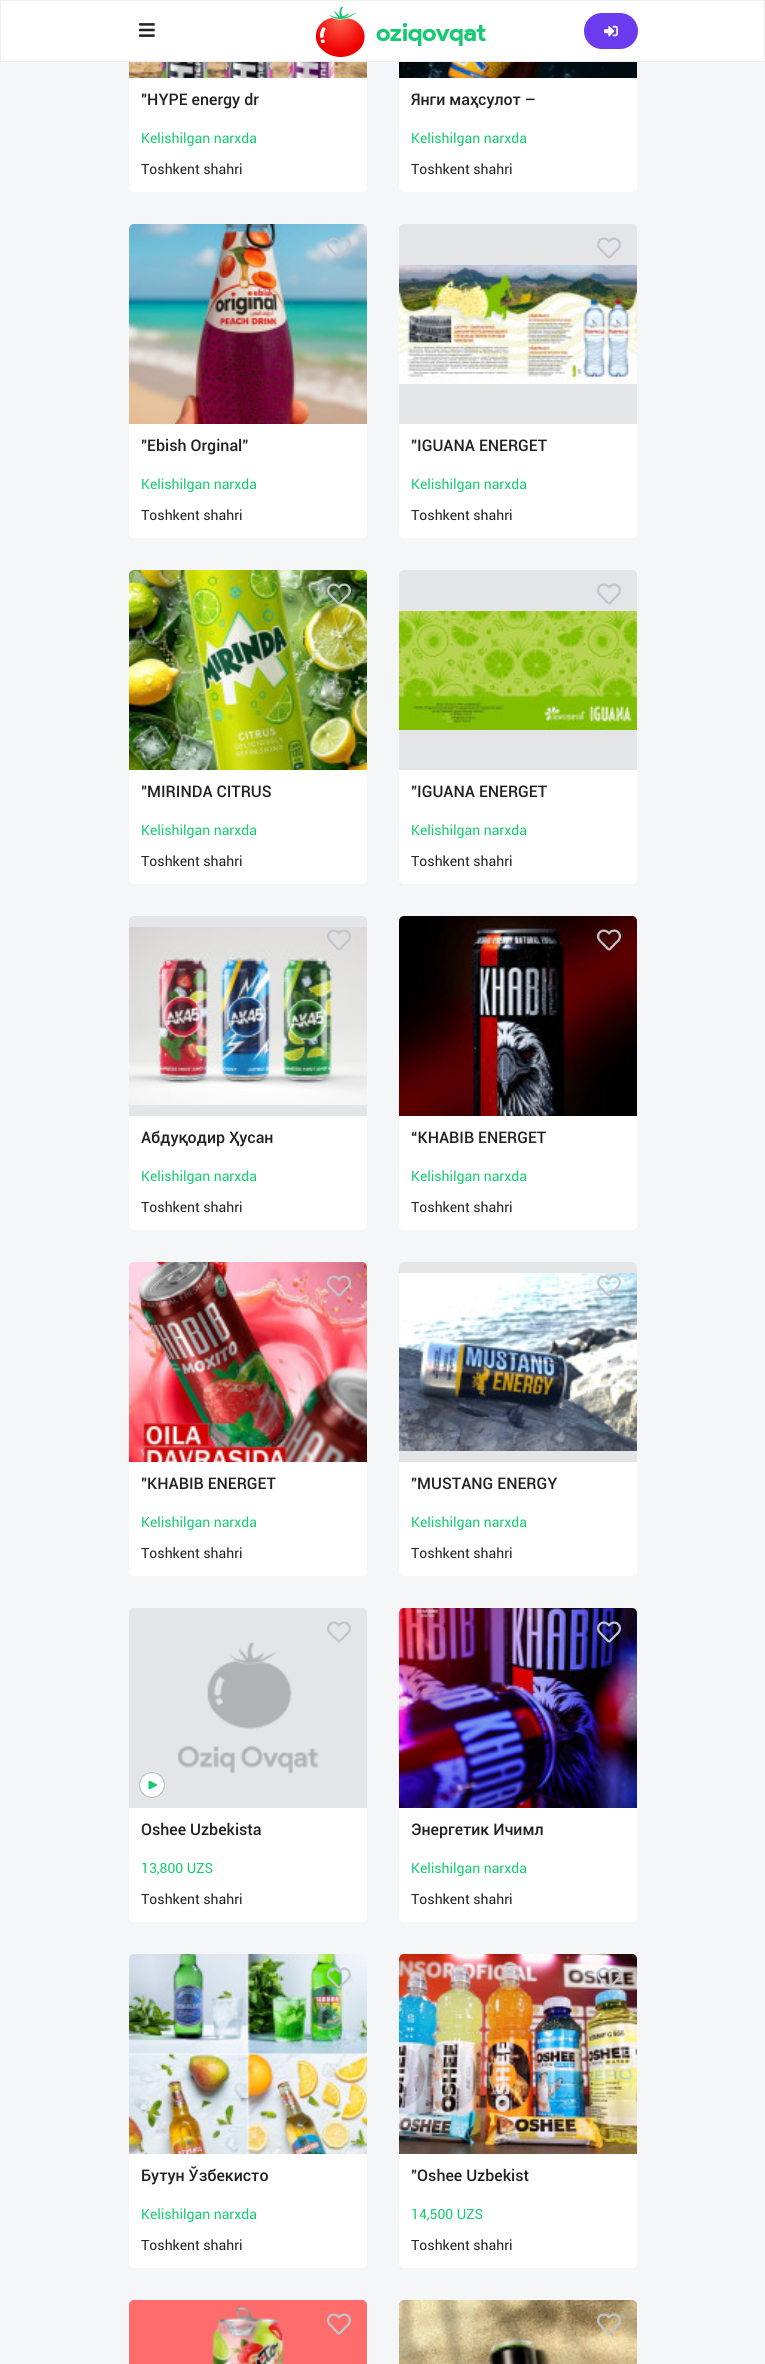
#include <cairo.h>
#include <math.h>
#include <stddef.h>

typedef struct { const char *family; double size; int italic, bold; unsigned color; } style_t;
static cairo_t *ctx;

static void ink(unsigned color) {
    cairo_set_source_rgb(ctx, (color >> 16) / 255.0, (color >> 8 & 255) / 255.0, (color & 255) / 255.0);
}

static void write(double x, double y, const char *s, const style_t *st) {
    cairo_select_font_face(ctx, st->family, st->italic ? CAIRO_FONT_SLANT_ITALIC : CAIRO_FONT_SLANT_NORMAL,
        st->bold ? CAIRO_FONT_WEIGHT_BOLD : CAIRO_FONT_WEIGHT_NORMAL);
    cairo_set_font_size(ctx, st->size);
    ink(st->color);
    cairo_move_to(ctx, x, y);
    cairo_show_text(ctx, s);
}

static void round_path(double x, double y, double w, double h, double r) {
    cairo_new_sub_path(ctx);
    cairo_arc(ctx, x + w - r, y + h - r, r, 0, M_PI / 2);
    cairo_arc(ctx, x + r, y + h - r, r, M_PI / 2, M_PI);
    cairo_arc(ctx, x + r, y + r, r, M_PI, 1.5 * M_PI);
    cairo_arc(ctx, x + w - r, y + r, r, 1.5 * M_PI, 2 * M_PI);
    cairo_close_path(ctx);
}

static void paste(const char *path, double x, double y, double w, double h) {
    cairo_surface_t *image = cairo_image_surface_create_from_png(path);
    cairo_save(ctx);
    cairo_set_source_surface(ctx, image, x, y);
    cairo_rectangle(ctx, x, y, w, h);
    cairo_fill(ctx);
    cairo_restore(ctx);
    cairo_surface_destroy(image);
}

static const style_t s1 = {"Roboto Medium", 16, 0, 0, 0x202124};
static const style_t s2 = {"Roboto", 14, 0, 0, 0x15ca72};
static const style_t s3 = {"Roboto", 14, 0, 0, 0x202124};

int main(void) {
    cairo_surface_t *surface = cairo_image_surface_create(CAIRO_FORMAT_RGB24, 765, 2364);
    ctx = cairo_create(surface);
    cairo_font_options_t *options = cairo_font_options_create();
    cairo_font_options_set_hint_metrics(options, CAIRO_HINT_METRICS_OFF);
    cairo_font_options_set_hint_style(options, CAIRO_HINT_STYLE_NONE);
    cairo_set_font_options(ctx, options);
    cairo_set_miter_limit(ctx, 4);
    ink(0xf4f6f7);
    cairo_paint(ctx);
    ink(0xffffff);
    cairo_rectangle(ctx, 0.5, 0.5, 764, 61);
    cairo_fill_preserve(ctx);
    ink(0xeeeeee);
    cairo_set_line_width(ctx, 1);
    cairo_stroke(ctx);
    paste("pic1.png", 139, 23, 16, 14);
    paste("pic2.png", 316, 7, 170, 50);
    ink(0x6b3bed);
    round_path(584, 13, 54, 36, 18);
    cairo_fill(ctx);
    paste("pic3.png", 604, 25, 14, 12);
    paste("pic4.png", 129, 62, 238, 16);
    ink(0xffffff);
    cairo_new_path(ctx);
    cairo_move_to(ctx, 129, 78);
    cairo_line_to(ctx, 367, 78);
    cairo_line_to(ctx, 367, 187);
    cairo_curve_to(ctx, 367, 190, 365, 192, 362, 192);
    cairo_line_to(ctx, 134, 192);
    cairo_curve_to(ctx, 131, 192, 129, 190, 129, 187);
    cairo_close_path(ctx);
    cairo_fill(ctx);
    write(141, 105, "\"HYPE energy dr", &s1);
    write(141, 143, "Kelishilgan narxda", &s2);
    write(141, 174, "Toshkent shahri", &s3);
    paste("pic5.png", 399, 62, 238, 16);
    ink(0xffffff);
    cairo_new_path(ctx);
    cairo_move_to(ctx, 399, 78);
    cairo_line_to(ctx, 637, 78);
    cairo_line_to(ctx, 637, 187);
    cairo_curve_to(ctx, 637, 190, 635, 192, 632, 192);
    cairo_line_to(ctx, 404, 192);
    cairo_curve_to(ctx, 401, 192, 399, 190, 399, 187);
    cairo_close_path(ctx);
    cairo_fill(ctx);
    write(411, 105, "Янги маҳсулот –", &s1);
    write(411, 143, "Kelishilgan narxda", &s2);
    write(411, 174, "Toshkent shahri", &s3);
    paste("pic7.png", 129, 224, 238, 200);
    paste("pic6.png", 327, 237, 24, 22);
    ink(0xffffff);
    cairo_new_path(ctx);
    cairo_move_to(ctx, 129, 424);
    cairo_line_to(ctx, 367, 424);
    cairo_line_to(ctx, 367, 533);
    cairo_curve_to(ctx, 367, 536, 365, 538, 362, 538);
    cairo_line_to(ctx, 134, 538);
    cairo_curve_to(ctx, 131, 538, 129, 536, 129, 533);
    cairo_close_path(ctx);
    cairo_fill(ctx);
    write(141, 451, "\"Ebish Orginal\"", &s1);
    write(141, 489, "Kelishilgan narxda", &s2);
    write(141, 520, "Toshkent shahri", &s3);
    ink(0xe3e5e6);
    cairo_new_path(ctx);
    cairo_move_to(ctx, 404, 224);
    cairo_line_to(ctx, 632, 224);
    cairo_curve_to(ctx, 635, 224, 637, 226, 637, 229);
    cairo_line_to(ctx, 637, 424);
    cairo_line_to(ctx, 399, 424);
    cairo_line_to(ctx, 399, 229);
    cairo_curve_to(ctx, 399, 226, 401, 224, 404, 224);
    cairo_close_path(ctx);
    cairo_fill(ctx);
    paste("pic8.png", 597, 237, 24, 22);
    paste("pic9.png", 399, 265, 238, 119);
    ink(0xffffff);
    cairo_new_path(ctx);
    cairo_move_to(ctx, 399, 424);
    cairo_line_to(ctx, 637, 424);
    cairo_line_to(ctx, 637, 533);
    cairo_curve_to(ctx, 637, 536, 635, 538, 632, 538);
    cairo_line_to(ctx, 404, 538);
    cairo_curve_to(ctx, 401, 538, 399, 536, 399, 533);
    cairo_close_path(ctx);
    cairo_fill(ctx);
    write(411, 451, "\"IGUANA ENERGET", &s1);
    write(411, 489, "Kelishilgan narxda", &s2);
    write(411, 520, "Toshkent shahri", &s3);
    paste("pic11.png", 129, 570, 238, 200);
    paste("pic10.png", 327, 583, 24, 22);
    ink(0xffffff);
    cairo_new_path(ctx);
    cairo_move_to(ctx, 129, 770);
    cairo_line_to(ctx, 367, 770);
    cairo_line_to(ctx, 367, 879);
    cairo_curve_to(ctx, 367, 882, 365, 884, 362, 884);
    cairo_line_to(ctx, 134, 884);
    cairo_curve_to(ctx, 131, 884, 129, 882, 129, 879);
    cairo_close_path(ctx);
    cairo_fill(ctx);
    write(141, 797, "\"MIRINDA CITRUS", &s1);
    write(141, 835, "Kelishilgan narxda", &s2);
    write(141, 866, "Toshkent shahri", &s3);
    ink(0xe3e5e6);
    cairo_new_path(ctx);
    cairo_move_to(ctx, 404, 570);
    cairo_line_to(ctx, 632, 570);
    cairo_curve_to(ctx, 635, 570, 637, 572, 637, 575);
    cairo_line_to(ctx, 637, 770);
    cairo_line_to(ctx, 399, 770);
    cairo_line_to(ctx, 399, 575);
    cairo_curve_to(ctx, 399, 572, 401, 570, 404, 570);
    cairo_close_path(ctx);
    cairo_fill(ctx);
    paste("pic8.png", 597, 583, 24, 22);
    paste("pic12.png", 399, 611, 238, 119);
    ink(0xffffff);
    cairo_new_path(ctx);
    cairo_move_to(ctx, 399, 770);
    cairo_line_to(ctx, 637, 770);
    cairo_line_to(ctx, 637, 879);
    cairo_curve_to(ctx, 637, 882, 635, 884, 632, 884);
    cairo_line_to(ctx, 404, 884);
    cairo_curve_to(ctx, 401, 884, 399, 882, 399, 879);
    cairo_close_path(ctx);
    cairo_fill(ctx);
    write(411, 797, "\"IGUANA ENERGET", &s1);
    write(411, 835, "Kelishilgan narxda", &s2);
    write(411, 866, "Toshkent shahri", &s3);
    ink(0xe3e5e6);
    cairo_new_path(ctx);
    cairo_move_to(ctx, 134, 916);
    cairo_line_to(ctx, 362, 916);
    cairo_curve_to(ctx, 365, 916, 367, 918, 367, 921);
    cairo_line_to(ctx, 367, 1116);
    cairo_line_to(ctx, 129, 1116);
    cairo_line_to(ctx, 129, 921);
    cairo_curve_to(ctx, 129, 918, 131, 916, 134, 916);
    cairo_close_path(ctx);
    cairo_fill(ctx);
    paste("pic14.png", 129, 927, 238, 178);
    paste("pic13.png", 327, 929, 24, 22);
    ink(0xffffff);
    cairo_new_path(ctx);
    cairo_move_to(ctx, 129, 1116);
    cairo_line_to(ctx, 367, 1116);
    cairo_line_to(ctx, 367, 1225);
    cairo_curve_to(ctx, 367, 1228, 365, 1230, 362, 1230);
    cairo_line_to(ctx, 134, 1230);
    cairo_curve_to(ctx, 131, 1230, 129, 1228, 129, 1225);
    cairo_close_path(ctx);
    cairo_fill(ctx);
    write(141, 1143, "Абдуқодир Ҳусан", &s1);
    write(141, 1181, "Kelishilgan narxda", &s2);
    write(141, 1212, "Toshkent shahri", &s3);
    paste("pic16.png", 399, 916, 238, 200);
    paste("pic15.png", 597, 929, 24, 22);
    ink(0xffffff);
    cairo_new_path(ctx);
    cairo_move_to(ctx, 399, 1116);
    cairo_line_to(ctx, 637, 1116);
    cairo_line_to(ctx, 637, 1225);
    cairo_curve_to(ctx, 637, 1228, 635, 1230, 632, 1230);
    cairo_line_to(ctx, 404, 1230);
    cairo_curve_to(ctx, 401, 1230, 399, 1228, 399, 1225);
    cairo_close_path(ctx);
    cairo_fill(ctx);
    write(411, 1143, "“KHABIB ENERGET", &s1);
    write(411, 1181, "Kelishilgan narxda", &s2);
    write(411, 1212, "Toshkent shahri", &s3);
    paste("pic18.png", 129, 1262, 238, 200);
    paste("pic17.png", 327, 1275, 24, 22);
    ink(0xffffff);
    cairo_new_path(ctx);
    cairo_move_to(ctx, 129, 1462);
    cairo_line_to(ctx, 367, 1462);
    cairo_line_to(ctx, 367, 1571);
    cairo_curve_to(ctx, 367, 1574, 365, 1576, 362, 1576);
    cairo_line_to(ctx, 134, 1576);
    cairo_curve_to(ctx, 131, 1576, 129, 1574, 129, 1571);
    cairo_close_path(ctx);
    cairo_fill(ctx);
    write(141, 1489, "\"KHABIB ENERGET", &s1);
    write(141, 1527, "Kelishilgan narxda", &s2);
    write(141, 1558, "Toshkent shahri", &s3);
    ink(0xe3e5e6);
    cairo_new_path(ctx);
    cairo_move_to(ctx, 404, 1262);
    cairo_line_to(ctx, 632, 1262);
    cairo_curve_to(ctx, 635, 1262, 637, 1264, 637, 1267);
    cairo_line_to(ctx, 637, 1462);
    cairo_line_to(ctx, 399, 1462);
    cairo_line_to(ctx, 399, 1267);
    cairo_curve_to(ctx, 399, 1264, 401, 1262, 404, 1262);
    cairo_close_path(ctx);
    cairo_fill(ctx);
    paste("pic20.png", 399, 1273, 238, 178);
    paste("pic19.png", 597, 1275, 24, 22);
    ink(0xffffff);
    cairo_new_path(ctx);
    cairo_move_to(ctx, 399, 1462);
    cairo_line_to(ctx, 637, 1462);
    cairo_line_to(ctx, 637, 1571);
    cairo_curve_to(ctx, 637, 1574, 635, 1576, 632, 1576);
    cairo_line_to(ctx, 404, 1576);
    cairo_curve_to(ctx, 401, 1576, 399, 1574, 399, 1571);
    cairo_close_path(ctx);
    cairo_fill(ctx);
    write(411, 1489, "\"MUSTANG ENERGY", &s1);
    write(411, 1527, "Kelishilgan narxda", &s2);
    write(411, 1558, "Toshkent shahri", &s3);
    ink(0xe3e5e6);
    cairo_new_path(ctx);
    cairo_move_to(ctx, 134, 1608);
    cairo_line_to(ctx, 362, 1608);
    cairo_curve_to(ctx, 365, 1608, 367, 1610, 367, 1613);
    cairo_line_to(ctx, 367, 1808);
    cairo_line_to(ctx, 129, 1808);
    cairo_line_to(ctx, 129, 1613);
    cairo_curve_to(ctx, 129, 1610, 131, 1608, 134, 1608);
    cairo_close_path(ctx);
    cairo_fill(ctx);
    paste("pic21.png", 130, 1608, 236, 166);
    paste("pic8.png", 327, 1621, 24, 22);
    paste("pic22.png", 139, 1772, 26, 26);
    ink(0xffffff);
    cairo_new_path(ctx);
    cairo_move_to(ctx, 129, 1808);
    cairo_line_to(ctx, 367, 1808);
    cairo_line_to(ctx, 367, 1917);
    cairo_curve_to(ctx, 367, 1920, 365, 1922, 362, 1922);
    cairo_line_to(ctx, 134, 1922);
    cairo_curve_to(ctx, 131, 1922, 129, 1920, 129, 1917);
    cairo_close_path(ctx);
    cairo_fill(ctx);
    write(141, 1835, "Oshee Uzbekista", &s1);
    write(141, 1873, "13,800 UZS", &s2);
    write(141, 1904, "Toshkent shahri", &s3);
    paste("pic24.png", 399, 1608, 238, 200);
    paste("pic23.png", 597, 1621, 24, 22);
    ink(0xffffff);
    cairo_new_path(ctx);
    cairo_move_to(ctx, 399, 1808);
    cairo_line_to(ctx, 637, 1808);
    cairo_line_to(ctx, 637, 1917);
    cairo_curve_to(ctx, 637, 1920, 635, 1922, 632, 1922);
    cairo_line_to(ctx, 404, 1922);
    cairo_curve_to(ctx, 401, 1922, 399, 1920, 399, 1917);
    cairo_close_path(ctx);
    cairo_fill(ctx);
    write(411, 1835, "Энергетик Ичимл", &s1);
    write(411, 1873, "Kelishilgan narxda", &s2);
    write(411, 1904, "Toshkent shahri", &s3);
    paste("pic26.png", 129, 1954, 238, 200);
    paste("pic25.png", 327, 1967, 24, 22);
    ink(0xffffff);
    cairo_new_path(ctx);
    cairo_move_to(ctx, 129, 2154);
    cairo_line_to(ctx, 367, 2154);
    cairo_line_to(ctx, 367, 2263);
    cairo_curve_to(ctx, 367, 2266, 365, 2268, 362, 2268);
    cairo_line_to(ctx, 134, 2268);
    cairo_curve_to(ctx, 131, 2268, 129, 2266, 129, 2263);
    cairo_close_path(ctx);
    cairo_fill(ctx);
    write(141, 2181, "Бутун Ўзбекисто", &s1);
    write(141, 2219, "Kelishilgan narxda", &s2);
    write(141, 2250, "Toshkent shahri", &s3);
    paste("pic28.png", 399, 1954, 238, 200);
    paste("pic27.png", 597, 1967, 24, 22);
    ink(0xffffff);
    cairo_new_path(ctx);
    cairo_move_to(ctx, 399, 2154);
    cairo_line_to(ctx, 637, 2154);
    cairo_line_to(ctx, 637, 2263);
    cairo_curve_to(ctx, 637, 2266, 635, 2268, 632, 2268);
    cairo_line_to(ctx, 404, 2268);
    cairo_curve_to(ctx, 401, 2268, 399, 2266, 399, 2263);
    cairo_close_path(ctx);
    cairo_fill(ctx);
    write(411, 2181, "\"Oshee Uzbekist", &s1);
    write(411, 2219, "14,500 UZS", &s2);
    write(411, 2250, "Toshkent shahri", &s3);
    paste("pic29.png", 129, 2300, 238, 64);
    paste("pic30.png", 327, 2313, 24, 22);
    paste("pic31.png", 399, 2300, 238, 64);
    paste("pic32.png", 597, 2313, 24, 22);
    cairo_surface_write_to_png(surface, "screenshot.png");
    cairo_font_options_destroy(options);
    cairo_destroy(ctx);
    cairo_surface_destroy(surface);
    return 0;
}
